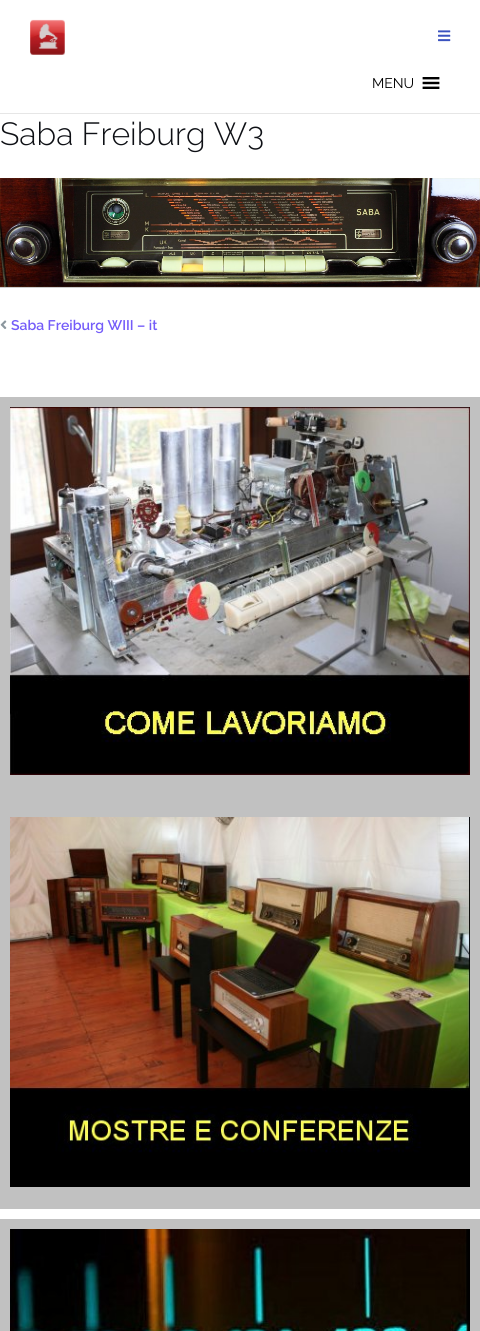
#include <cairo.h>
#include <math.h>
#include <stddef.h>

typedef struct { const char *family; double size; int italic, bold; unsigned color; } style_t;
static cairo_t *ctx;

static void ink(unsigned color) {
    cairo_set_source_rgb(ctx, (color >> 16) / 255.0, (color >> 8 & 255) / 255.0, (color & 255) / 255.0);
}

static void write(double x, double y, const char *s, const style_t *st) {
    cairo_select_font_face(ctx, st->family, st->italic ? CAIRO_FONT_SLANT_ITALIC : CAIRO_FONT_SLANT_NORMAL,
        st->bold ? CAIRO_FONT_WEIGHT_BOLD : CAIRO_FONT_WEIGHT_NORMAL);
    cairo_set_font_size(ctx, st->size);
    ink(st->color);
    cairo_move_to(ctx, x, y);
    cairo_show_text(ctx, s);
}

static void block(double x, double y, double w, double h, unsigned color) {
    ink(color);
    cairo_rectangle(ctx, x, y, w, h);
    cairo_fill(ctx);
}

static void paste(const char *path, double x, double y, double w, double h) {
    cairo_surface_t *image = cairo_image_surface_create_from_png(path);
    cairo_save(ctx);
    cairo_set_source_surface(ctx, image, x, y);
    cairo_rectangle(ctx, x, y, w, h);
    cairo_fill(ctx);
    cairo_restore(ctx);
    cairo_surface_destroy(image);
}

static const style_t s1 = {"Raleway", 14, 0, 0, 0x000000};
static const style_t s2 = {"Raleway Light", 32, 0, 0, 0x0e1015};
static const style_t s3 = {"Raleway SemiBold", 14, 0, 0, 0x745cf9};

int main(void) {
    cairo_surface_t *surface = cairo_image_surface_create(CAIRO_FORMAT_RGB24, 480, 1331);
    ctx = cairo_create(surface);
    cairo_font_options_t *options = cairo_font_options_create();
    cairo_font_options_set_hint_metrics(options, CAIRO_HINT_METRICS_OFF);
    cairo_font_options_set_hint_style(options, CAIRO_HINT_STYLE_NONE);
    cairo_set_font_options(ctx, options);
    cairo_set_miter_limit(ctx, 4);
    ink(0xffffff);
    cairo_paint(ctx);
    block(0, 113, 480, 1, 0xe6e6e6);
    paste("pic1.png", 30, 19, 35, 36);
    paste("pic2.png", 438, 30, 13, 12);
    write(372, 88, "MENU", &s1);
    paste("pic3.png", 422, 77, 18, 12);
    write(0, 145, "Saba Freiburg W3", &s2);
    paste("pic4.png", 0, 178, 480, 109);
    block(0, 287, 480, 1, 0xcccccc);
    paste("pic5.png", 0, 320, 7, 9);
    write(11, 330, "Saba Freiburg WIII – it", &s3);
    block(0, 397, 480, 812, 0xc1c1c1);
    paste("pic6.png", 10, 407, 460, 368);
    paste("pic7.png", 10, 817, 460, 370);
    block(0, 1219, 480, 112, 0xc1c1c1);
    paste("pic8.png", 10, 1229, 460, 102);
    cairo_surface_write_to_png(surface, "screenshot.png");
    cairo_font_options_destroy(options);
    cairo_destroy(ctx);
    cairo_surface_destroy(surface);
    return 0;
}
